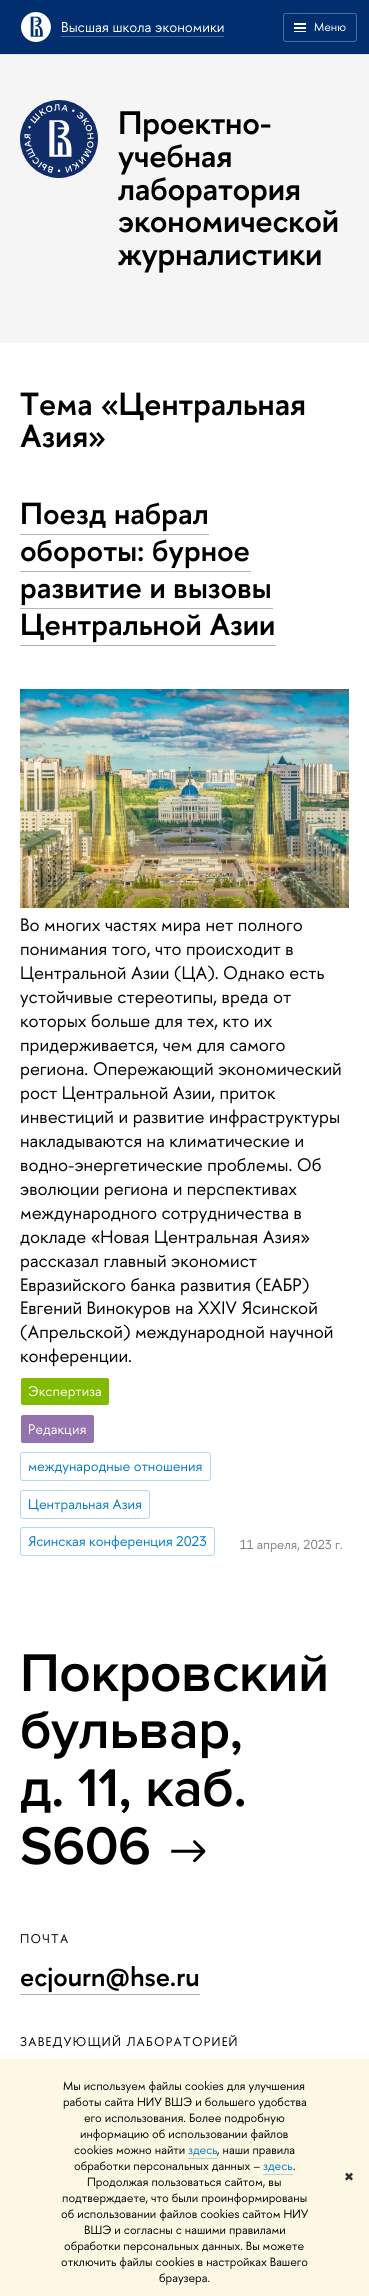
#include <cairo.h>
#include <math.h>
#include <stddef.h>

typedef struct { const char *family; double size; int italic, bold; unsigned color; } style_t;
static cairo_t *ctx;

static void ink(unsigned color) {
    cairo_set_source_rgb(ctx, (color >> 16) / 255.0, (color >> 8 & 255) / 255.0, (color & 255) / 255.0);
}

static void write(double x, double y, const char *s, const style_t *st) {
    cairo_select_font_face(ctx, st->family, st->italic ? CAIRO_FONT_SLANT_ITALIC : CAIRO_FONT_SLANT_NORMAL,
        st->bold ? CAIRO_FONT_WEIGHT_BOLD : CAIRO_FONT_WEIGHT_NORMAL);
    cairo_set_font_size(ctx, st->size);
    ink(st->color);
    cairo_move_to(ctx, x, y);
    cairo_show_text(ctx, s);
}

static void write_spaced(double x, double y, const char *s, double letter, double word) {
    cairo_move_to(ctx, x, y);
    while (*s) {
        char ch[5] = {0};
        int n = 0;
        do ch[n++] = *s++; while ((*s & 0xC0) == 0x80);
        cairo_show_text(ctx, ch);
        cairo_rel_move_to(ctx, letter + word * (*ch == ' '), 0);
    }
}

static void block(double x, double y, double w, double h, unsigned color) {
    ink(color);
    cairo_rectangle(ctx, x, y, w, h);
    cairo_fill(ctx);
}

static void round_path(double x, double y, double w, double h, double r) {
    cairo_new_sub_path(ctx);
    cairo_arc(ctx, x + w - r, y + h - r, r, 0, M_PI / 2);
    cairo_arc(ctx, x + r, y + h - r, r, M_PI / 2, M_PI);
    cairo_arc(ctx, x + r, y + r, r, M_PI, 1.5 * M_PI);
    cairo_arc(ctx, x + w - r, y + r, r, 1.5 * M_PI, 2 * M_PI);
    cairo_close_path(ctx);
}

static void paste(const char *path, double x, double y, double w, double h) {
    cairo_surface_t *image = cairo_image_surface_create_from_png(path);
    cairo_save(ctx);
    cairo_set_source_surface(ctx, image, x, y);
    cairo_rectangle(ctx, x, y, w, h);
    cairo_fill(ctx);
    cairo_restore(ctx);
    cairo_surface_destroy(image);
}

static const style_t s1 = {"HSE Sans", 14.4, 0, 0, 0xffffff};
static const style_t s2 = {"HSE Sans", 12, 0, 0, 0xffffff};
static const style_t s3 = {"HSE Sans SemiBold", 32, 0, 0, 0x000000};
static const style_t s4 = {"HSE Sans SemiBold", 30.5, 0, 0, 0x000000};
static const style_t s5 = {"HSE Sans", 18, 0, 0, 0x000000};
static const style_t s6 = {"HSE Sans", 14, 0, 0, 0xffffff};
static const style_t s7 = {"HSE Sans", 14, 0, 0, 0x007ac5};
static const style_t s8 = {"HSE Sans", 13, 0, 0, 0x808080};
static const style_t s9 = {"HSE Sans SemiBold", 26.5, 0, 0, 0x000000};
static const style_t s10 = {"HSE Sans", 12, 0, 0, 0x000000};
static const style_t s11 = {"HSE Sans", 12, 0, 0, 0x007ac5};
static const style_t s12 = {"DejaVu Sans", 12, 0, 0, 0x333333};

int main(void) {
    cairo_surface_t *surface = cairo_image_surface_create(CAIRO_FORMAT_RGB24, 369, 2296);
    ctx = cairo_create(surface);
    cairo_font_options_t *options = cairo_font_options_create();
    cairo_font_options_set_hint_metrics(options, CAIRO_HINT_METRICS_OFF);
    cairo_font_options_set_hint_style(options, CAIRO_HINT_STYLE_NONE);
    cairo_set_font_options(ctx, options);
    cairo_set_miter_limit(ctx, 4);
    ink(0xffffff);
    cairo_paint(ctx);
    block(0, 0, 369, 54, 0x002e6e);
    block(0, 54, 369, 1, 0xe3e1de);
    paste("pic1.png", 21, 12, 30, 30);
    block(61, 36, 163, 1, 0x4d6d9a);
    write(61, 32, "Высшая школа экономики", &s1);
    round_path(283.5, 13.5, 73, 28, 2.5);
    ink(0x4d6d9a);
    cairo_set_line_width(ctx, 1);
    cairo_stroke(ctx);
    block(294, 23, 12, 2, 0xffffff);
    block(294, 27, 12, 2, 0xffffff);
    block(294, 31, 12, 1, 0xffffff);
    write(314, 31, "Меню", &s2);
    block(0, 55, 369, 288, 0xf5f5f5);
    paste("pic2.png", 20, 100, 78, 78);
    cairo_select_font_face(ctx, "HSE Sans SemiBold", CAIRO_FONT_SLANT_NORMAL, CAIRO_FONT_WEIGHT_NORMAL);
    cairo_set_font_size(ctx, 32.5);
    ink(0x000000);
    write_spaced(118, 134, "Проектно-", -0.25, 0);
    write_spaced(118, 167, "учебная", -0.25, 0);
    write_spaced(118, 200, "лаборатория", -0.25, 0);
    write_spaced(118, 232, "экономической", -0.25, 0);
    write_spaced(118, 265, "журналистики", -0.25, 0);
    write(20, 415, "Тема «Центральная", &s3);
    write(20, 447, "Азия»", &s3);
    write(20, 524, "Поезд набрал", &s4);
    block(20, 534, 189, 1, 0xb3b3b3);
    write(20, 561, "обороты: бурное", &s4);
    block(20, 571, 231, 1, 0xb3b3b3);
    write(20, 598, "развитие и вызовы", &s4);
    block(20, 608, 253, 1, 0xb3b3b3);
    write(20, 635, "Центральной Азии", &s4);
    block(20, 645, 256, 1, 0xb3b3b3);
    paste("pic3.png", 20, 689, 329, 219);
    write(20, 931, "Во многих частях мира нет полного", &s5);
    write(20, 955, "понимания того, что происходит в", &s5);
    write(20, 979, "Центральной Азии (ЦА). Однако есть", &s5);
    write(20, 1003, "устойчивые стереотипы, вреда от", &s5);
    write(20, 1027, "которых больше для тех, кто их", &s5);
    write(20, 1051, "придерживается, чем для самого", &s5);
    write(20, 1075, "региона. Опережающий экономический", &s5);
    write(20, 1099, "рост Центральной Азии, приток", &s5);
    write(20, 1123, "инвестиций и развитие инфраструктуры", &s5);
    write(20, 1147, "накладываются на климатические и", &s5);
    write(20, 1171, "водно-энергетические проблемы. Об", &s5);
    write(20, 1195, "эволюции региона и перспективах", &s5);
    write(20, 1219, "международного сотрудничества в", &s5);
    write(20, 1243, "докладе «Новая Центральная Азия»", &s5);
    write(20, 1267, "рассказал главный экономист", &s5);
    write(20, 1291, "Евразийского банка развития (ЕАБР)", &s5);
    write(20, 1314, "Евгений Винокуров на XXIV Ясинской", &s5);
    write(20, 1338, "(Апрельской) международной научной", &s5);
    write(20, 1362, "конференции.", &s5);
    ink(0x80bb00);
    round_path(20.5, 1377.5, 89, 28, 2.5);
    cairo_fill_preserve(ctx);
    ink(0xffffff);
    cairo_stroke(ctx);
    write(28, 1396, "Экспертиза", &s6);
    ink(0x9472ae);
    round_path(20.5, 1414.5, 74, 29, 2.5);
    cairo_fill_preserve(ctx);
    ink(0xffffff);
    cairo_stroke(ctx);
    write(28, 1434, "Редакция", &s6);
    round_path(20.5, 1452.5, 190, 28, 2.5);
    ink(0xb3d7ee);
    cairo_stroke(ctx);
    write(28, 1471, "международные отношения", &s7);
    round_path(20.5, 1490.5, 129, 28, 2.5);
    ink(0xb3d7ee);
    cairo_stroke(ctx);
    write(28, 1509, "Центральная Азия", &s7);
    round_path(20.5, 1527.5, 194, 28, 2.5);
    ink(0xb3d7ee);
    cairo_stroke(ctx);
    write(28, 1546, "Ясинская конференция 2023", &s7);
    write(240, 1549, "11 апреля, 2023 г.", &s8);
    cairo_select_font_face(ctx, "Proxima Nova SemiBold", CAIRO_FONT_SLANT_NORMAL, CAIRO_FONT_WEIGHT_NORMAL);
    cairo_set_font_size(ctx, 55);
    ink(0x000000);
    write_spaced(20, 1691, "Покровский", -0.5, 0);
    write_spaced(20, 1748, "бульвар,", -0.5, 0);
    write_spaced(20, 1806, "д. 11, каб.", -0.5, 0);
    write_spaced(20, 1864, "S606", -0.5, 0);
    paste("pic4.png", 171, 1840, 35, 23);
    cairo_select_font_face(ctx, "HSE Sans", CAIRO_FONT_SLANT_NORMAL, CAIRO_FONT_WEIGHT_NORMAL);
    cairo_set_font_size(ctx, 12.6);
    write_spaced(20, 1943, "ПОЧТА", 1.25, 0);
    write(20, 1986, "ecjourn@hse.ru", &s9);
    block(20, 1994, 180, 1, 0xb3b3b3);
    cairo_select_font_face(ctx, "HSE Sans", CAIRO_FONT_SLANT_NORMAL, CAIRO_FONT_WEIGHT_NORMAL);
    cairo_set_font_size(ctx, 12.6);
    ink(0x000000);
    write_spaced(20, 2046, "ЗАВЕДУЮЩИЙ ЛАБОРАТОРИЕЙ", 1.25, 0);
    block(0, 2059, 369, 237, 0xfcf8e3);
    write(63, 2090, "Мы используем файлы cookies для улучшения", &s10);
    write(63, 2106, "работы сайта НИУ ВШЭ и большего удобства", &s10);
    write(84, 2122, "его использования. Более подробную", &s10);
    write(80, 2138, "информацию об использовании файлов", &s10);
    write(74, 2154, "cookies можно найти", &s10);
    write(188, 2154, "здесь", &s11);
    block(188, 2158, 29, 1, 0xb0d2da);
    write(217, 2154, ", наши правила", &s10);
    write(74, 2170, "обработки персональных данных –", &s10);
    write(263, 2170, "здесь", &s11);
    block(263, 2174, 30, 1, 0xb0d2da);
    write(293, 2170, ".", &s10);
    write(87, 2186, "Продолжая пользоваться сайтом, вы", &s10);
    write(62, 2202, "подтверждаете, что были проинформированы", &s10);
    write(61, 2218, "об использовании файлов cookies сайтом НИУ", &s10);
    write(84, 2234, "ВШЭ и согласны с нашими правилами", &s10);
    write(64, 2250, "обработки персональных данных. Вы можете", &s10);
    write(61, 2266, "отключить файлы cookies в настройках Вашего", &s10);
    write(159, 2282, "браузера.", &s10);
    write(344, 2181, "✖", &s12);
    cairo_surface_write_to_png(surface, "screenshot.png");
    cairo_font_options_destroy(options);
    cairo_destroy(ctx);
    cairo_surface_destroy(surface);
    return 0;
}
